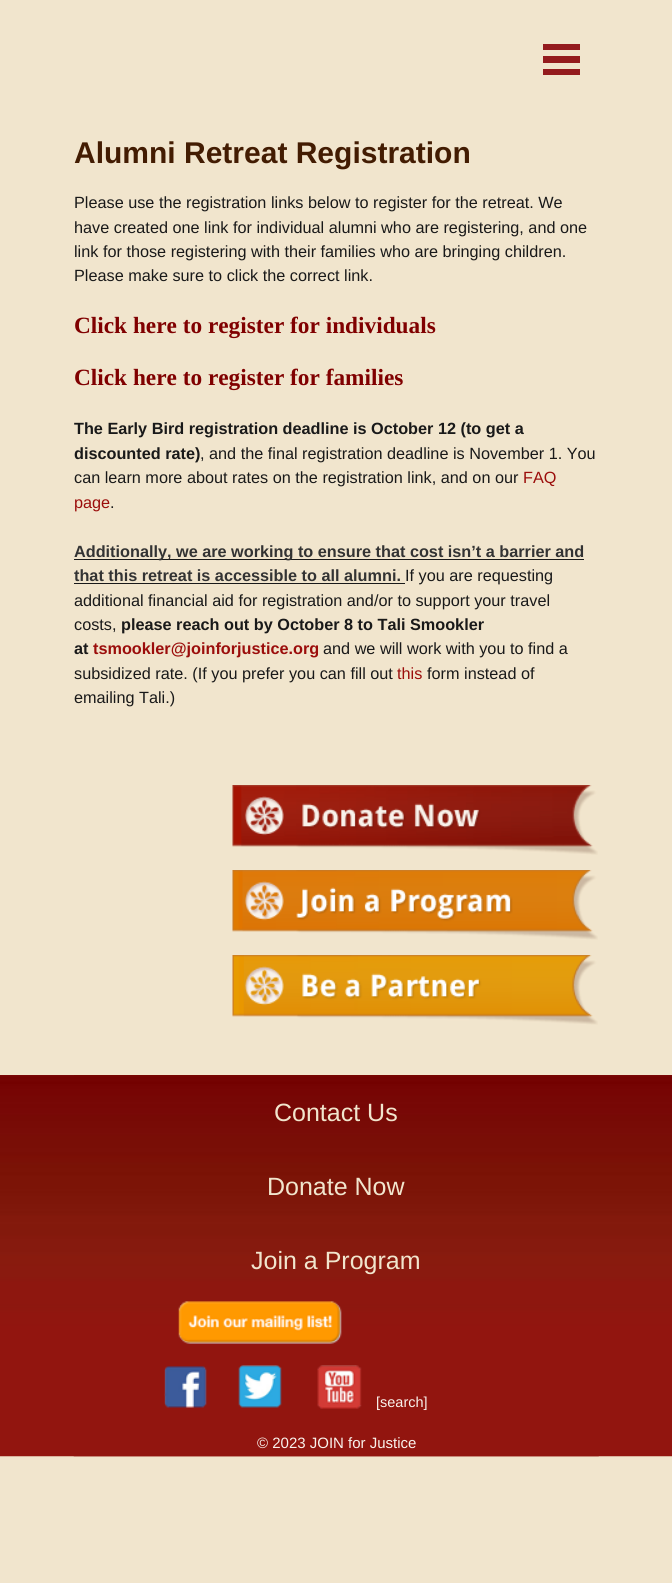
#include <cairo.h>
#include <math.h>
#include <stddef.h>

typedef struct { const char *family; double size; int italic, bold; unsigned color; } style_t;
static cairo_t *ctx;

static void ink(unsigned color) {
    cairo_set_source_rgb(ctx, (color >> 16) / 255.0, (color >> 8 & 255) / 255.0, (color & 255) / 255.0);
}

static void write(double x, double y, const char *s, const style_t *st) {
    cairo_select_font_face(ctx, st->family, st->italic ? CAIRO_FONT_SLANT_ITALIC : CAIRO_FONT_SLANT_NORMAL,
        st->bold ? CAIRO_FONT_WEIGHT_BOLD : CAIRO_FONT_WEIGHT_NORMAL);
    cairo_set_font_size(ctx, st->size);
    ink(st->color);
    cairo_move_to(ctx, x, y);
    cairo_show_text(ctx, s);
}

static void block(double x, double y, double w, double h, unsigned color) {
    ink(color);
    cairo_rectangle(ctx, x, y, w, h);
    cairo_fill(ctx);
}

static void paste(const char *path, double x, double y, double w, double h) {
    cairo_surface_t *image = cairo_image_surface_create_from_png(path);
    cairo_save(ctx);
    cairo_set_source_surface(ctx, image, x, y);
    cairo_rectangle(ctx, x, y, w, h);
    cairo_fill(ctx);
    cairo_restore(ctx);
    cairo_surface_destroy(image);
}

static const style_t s1 = {"Liberation Sans", 30, 0, 1, 0x431c02};
static const style_t s2 = {"Liberation Sans", 16.25, 0, 0, 0x191919};
static const style_t s3 = {"Liberation Serif", 23.3, 0, 1, 0x800000};
static const style_t s4 = {"Liberation Sans", 16.25, 0, 1, 0x191919};
static const style_t s5 = {"Liberation Sans", 16.25, 0, 0, 0x9b0d0b};
static const style_t s6 = {"Liberation Sans", 16.25, 0, 1, 0x333333};
static const style_t s7 = {"Liberation Sans", 16.25, 0, 1, 0x9b0d0b};
static const style_t s8 = {"Liberation Sans", 25, 0, 0, 0xf1e5cd};
static const style_t s9 = {"Liberation Sans", 14.5, 0, 0, 0xf9f2ec};
static const style_t s10 = {"Liberation Sans", 15, 0, 0, 0xf9f2ec};

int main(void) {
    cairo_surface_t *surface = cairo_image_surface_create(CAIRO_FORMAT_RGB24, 672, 1583);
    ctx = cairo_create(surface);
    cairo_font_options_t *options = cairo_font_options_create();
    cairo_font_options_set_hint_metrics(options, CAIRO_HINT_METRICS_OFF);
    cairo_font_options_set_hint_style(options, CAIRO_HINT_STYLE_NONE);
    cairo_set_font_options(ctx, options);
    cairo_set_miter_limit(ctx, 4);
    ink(0xf1e5cd);
    cairo_paint(ctx);
    block(543, 44, 37, 6, 0x941b1d);
    block(543, 56, 37, 7, 0x941b1d);
    block(543, 69, 37, 6, 0x941b1d);
    write(74, 163, "Alumni Retreat Registration", &s1);
    write(74, 208, "Please use the registration links below to register for the retreat. We", &s2);
    write(74, 233, "have created one link for individual alumni who are registering, and one", &s2);
    write(74, 257, "link for those registering with their families who are bringing children.", &s2);
    write(74, 281, "Please make sure to click the correct link.", &s2);
    write(74, 333, "Click here to register for individuals", &s3);
    write(74, 385, "Click here to register for families", &s3);
    write(74, 434, "The Early Bird registration deadline is October 12 (to get a", &s4);
    write(74, 459, "discounted rate)", &s4);
    write(200, 459, ", and the final registration deadline is November 1. You", &s2);
    write(74, 483, "can learn more about rates on the registration link, and on our", &s2);
    write(523, 483, "FAQ", &s5);
    write(74, 508, "page", &s5);
    write(110, 508, ".", &s2);
    block(74, 559, 510, 1, 0x191919);
    write(74, 557, "Additionally, we are working to ensure that cost isn’t a barrier and", &s6);
    write(74, 581, "that this retreat is accessible to all alumni.", &s6);
    write(405, 581, "If you are requesting", &s2);
    block(74, 583, 331, 1, 0x191919);
    write(74, 606, "additional financial aid for registration and/or to support your travel", &s2);
    write(74, 630, "costs,", &s2);
    write(121, 630, "please reach out by October 8 to Tali Smookler", &s4);
    write(74, 654, "at", &s4);
    write(93, 654, "tsmookler@joinforjustice.org", &s7);
    write(323, 654, "and we will work with you to find a", &s2);
    write(74, 679, "subsidized rate. (If you prefer you can fill out", &s2);
    write(397, 679, "this", &s5);
    write(427, 679, "form instead of", &s2);
    write(74, 703, "emailing Tali.)", &s2);
    paste("pic1.png", 232, 785, 366, 70);
    paste("pic2.png", 232, 870, 366, 70);
    paste("pic3.png", 232, 955, 366, 70);
    paste("pic4.png", 0, 1075, 672, 382);
    paste("pic5.png", 73, 1456, 526, 1);
    block(74, 1075, 525, 1, 0x770500);
    write(274, 1121, "Contact Us", &s8);
    write(267, 1195, "Donate Now", &s8);
    write(251, 1269, "Join a Program", &s8);
    paste("pic6.png", 178, 1301, 164, 43);
    paste("pic7.png", 164, 1366, 43, 42);
    paste("pic8.png", 238, 1365, 44, 43);
    paste("pic9.png", 317, 1365, 45, 44);
    write(376, 1407, "[search]", &s9);
    write(257, 1448, "© 2023 JOIN for Justice", &s10);
    cairo_surface_write_to_png(surface, "screenshot.png");
    cairo_font_options_destroy(options);
    cairo_destroy(ctx);
    cairo_surface_destroy(surface);
    return 0;
}
